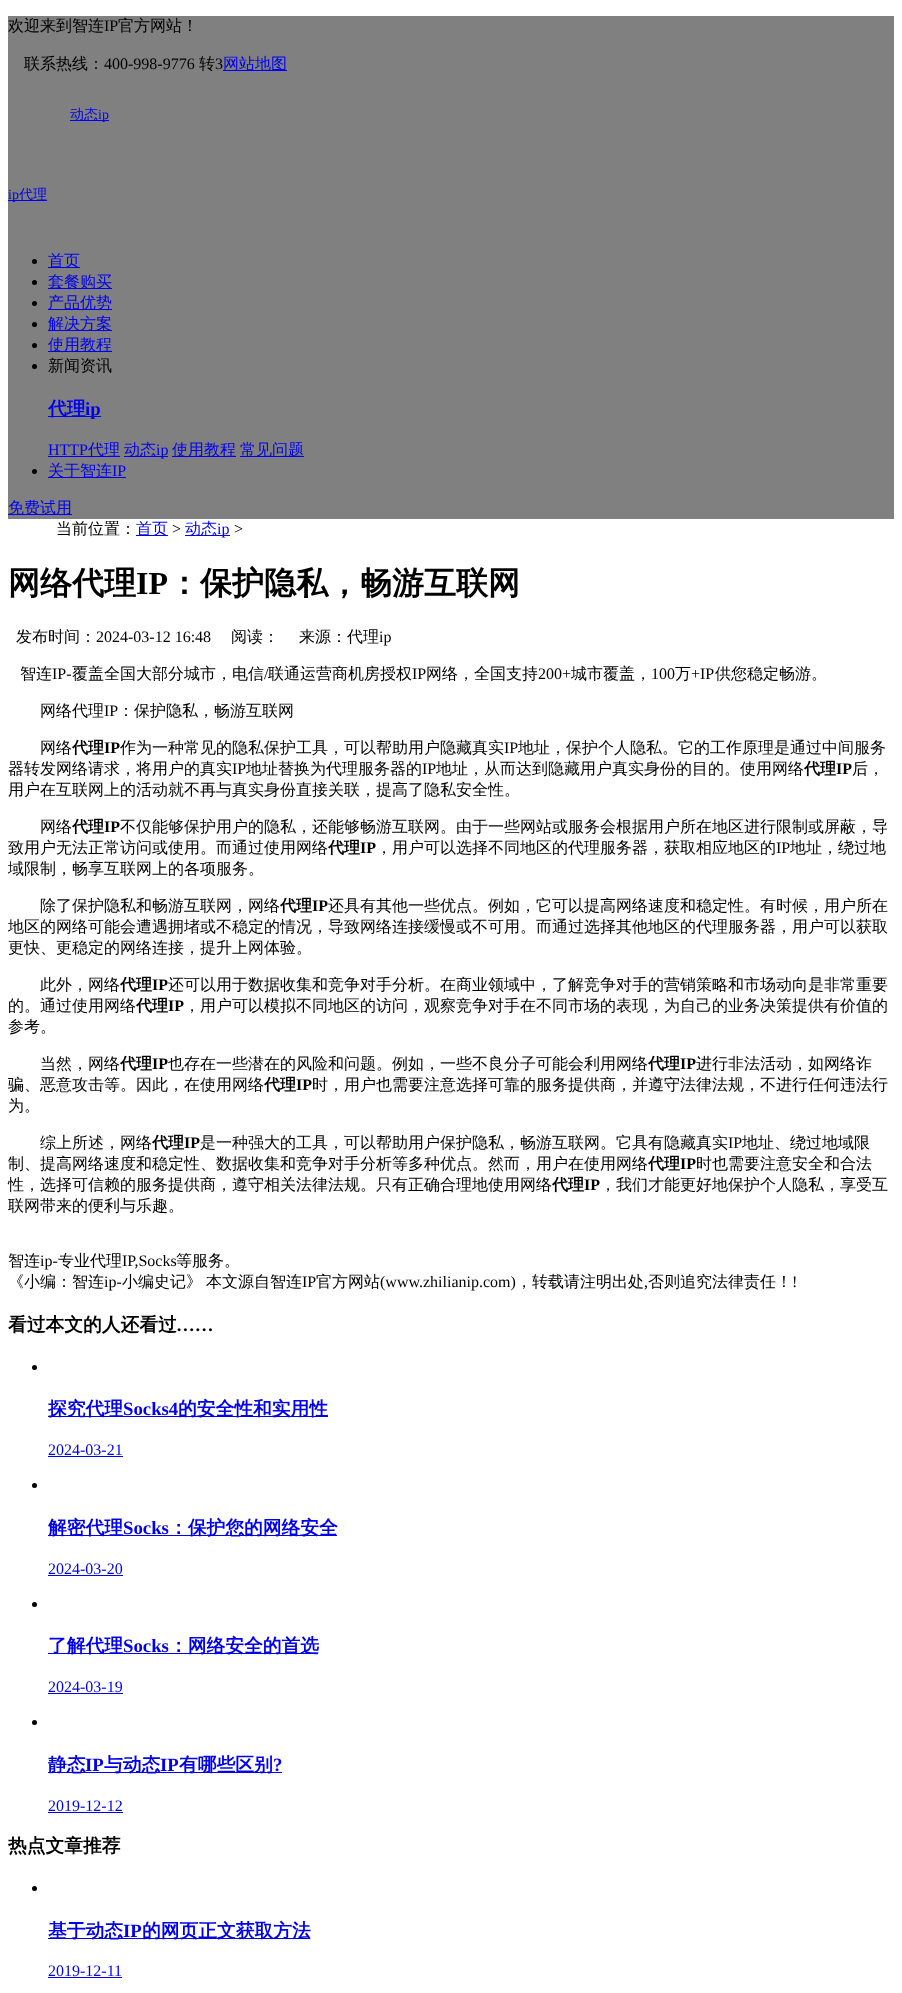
<svg xmlns="http://www.w3.org/2000/svg" width="902" height="1993" viewBox="0 0 902 1993">
  <rect width="100%" height="100%" fill="#fff"/>
  <path d="M8 16h886v503H8z" fill="#808080"/>
  <path d="M223 70h64v1H223z" fill="#00e"/>
  <path d="M70 120h39v1H70z" fill="#00e"/>
  <path d="M8 200h39v1H8z" fill="#00e"/>
  <circle cx="34.5" cy="261.5" r="2.5" fill="#000"/>
  <path d="M48 267h32v1H48z" fill="#00e"/>
  <circle cx="34.5" cy="282.5" r="2.5" fill="#000"/>
  <path d="M48 288h64v1H48z" fill="#00e"/>
  <circle cx="34.5" cy="303.5" r="2.5" fill="#000"/>
  <path d="M48 309h64v1H48z" fill="#00e"/>
  <circle cx="34.5" cy="324.5" r="2.5" fill="#000"/>
  <path d="M48 330h64v1H48z" fill="#00e"/>
  <circle cx="34.5" cy="345.5" r="2.5" fill="#000"/>
  <path d="M48 351h64v1H48z" fill="#00e"/>
  <circle cx="34.5" cy="366.5" r="2.5" fill="#000"/>
  <path d="M48 416h53v1H48z" fill="#00e"/>
  <path d="M48 456h72v1H48z" fill="#00e"/>
  <path d="M124 456h44v1H124z" fill="#00e"/>
  <path d="M172 456h64v1H172z" fill="#00e"/>
  <path d="M240 456h64v1H240z" fill="#00e"/>
  <circle cx="34.5" cy="471.5" r="2.5" fill="#000"/>
  <path d="M48 477h78v1H48z" fill="#00e"/>
  <path d="M8 514h64v1H8z" fill="#00e"/>
  <path d="M136 535h32v1H136z" fill="#00e"/>
  <path d="M185 535h45v1H185z" fill="#00e"/>
  <circle cx="34.5" cy="1367.5" r="2.5" fill="#000"/>
  <path d="M48 1416h280v1H48z" fill="#00e"/>
  <path d="M48 1456h75v1H48z" fill="#00e"/>
  <circle cx="34.5" cy="1485.5" r="2.5" fill="#000"/>
  <path d="M48 1535h289v1H48z" fill="#00e"/>
  <path d="M48 1575h75v1H48z" fill="#00e"/>
  <circle cx="34.5" cy="1604.5" r="2.5" fill="#000"/>
  <path d="M48 1653h270v1H48z" fill="#00e"/>
  <path d="M48 1693h75v1H48z" fill="#00e"/>
  <circle cx="34.5" cy="1722.5" r="2.5" fill="#000"/>
  <path d="M48 1772h234v1H48z" fill="#00e"/>
  <path d="M48 1812h75v1H48z" fill="#00e"/>
  <circle cx="34.5" cy="1888.5" r="2.5" fill="#000"/>
  <path d="M48 1938h262v1H48z" fill="#00e"/>
  <path d="M48 1977h74v1H48z" fill="#00e"/>
  <text x="8" y="31" font-family="WenQuanYi Zen Hei" font-size="16" font-weight="500" fill="#000">欢迎来到智连</text>
  <text x="104" y="31" font-family="Liberation Serif" font-size="16" fill="#000">IP</text>
  <g font-family="WenQuanYi Zen Hei" font-size="16" font-weight="500" fill="#000">
    <text x="118" y="31">官方网站！</text>
    <text x="24" y="69">联系热线：</text>
  </g>
  <text x="104" y="69" font-family="Liberation Serif" font-size="16" fill="#000">400-998-9776</text>
  <text x="199" y="69" font-family="WenQuanYi Zen Hei" font-size="16" font-weight="500" fill="#000">转</text>
  <text x="215" y="69" font-family="Liberation Serif" font-size="16" fill="#000">3</text>
  <text x="223" y="69" font-family="WenQuanYi Zen Hei" font-size="16" font-weight="500" fill="#00e">网站地图</text>
  <text x="70" y="119" font-family="WenQuanYi Zen Hei" font-size="14" font-weight="500" fill="#00e">动态</text>
  <g font-family="Liberation Serif" font-size="14" fill="#00e">
    <text x="98" y="119">ip</text>
    <text x="8" y="199">ip</text>
  </g>
  <text x="19" y="199" font-family="WenQuanYi Zen Hei" font-size="14" font-weight="500" fill="#00e">代理</text>
  <g font-family="WenQuanYi Zen Hei" font-size="16" font-weight="500" fill="#00e">
    <text x="48" y="266">首页</text>
    <text x="48" y="287">套餐购买</text>
    <text x="48" y="308">产品优势</text>
    <text x="48" y="329">解决方案</text>
    <text x="48" y="350">使用教程</text>
  </g>
  <text x="48" y="371" font-family="WenQuanYi Zen Hei" font-size="16" font-weight="500" fill="#000">新闻资讯</text>
  <text x="48" y="415" font-family="WenQuanYi Zen Hei" font-size="18.75" font-weight="bold" fill="#00e">代理</text>
  <text x="85" y="415" font-family="Liberation Serif" font-size="18.75" font-weight="bold" fill="#00e">ip</text>
  <text x="48" y="455" font-family="Liberation Serif" font-size="16" fill="#00e">HTTP</text>
  <g font-family="WenQuanYi Zen Hei" font-size="16" font-weight="500" fill="#00e">
    <text x="88" y="455">代理</text>
    <text x="124" y="455">动态</text>
  </g>
  <text x="156" y="455" font-family="Liberation Serif" font-size="16" fill="#00e">ip</text>
  <g font-family="WenQuanYi Zen Hei" font-size="16" font-weight="500" fill="#00e">
    <text x="172" y="455">使用教程</text>
    <text x="240" y="455">常见问题</text>
    <text x="48" y="476">关于智连</text>
  </g>
  <text x="112" y="476" font-family="Liberation Serif" font-size="16" fill="#00e">IP</text>
  <text x="8" y="513" font-family="WenQuanYi Zen Hei" font-size="16" font-weight="500" fill="#00e">免费试用</text>
  <text x="56" y="534" font-family="WenQuanYi Zen Hei" font-size="16" font-weight="500" fill="#000">当前位置：</text>
  <text x="136" y="534" font-family="WenQuanYi Zen Hei" font-size="16" font-weight="500" fill="#00e">首页</text>
  <text x="172" y="534" font-family="Liberation Serif" font-size="16" fill="#000">&gt;</text>
  <text x="185" y="534" font-family="WenQuanYi Zen Hei" font-size="16" font-weight="500" fill="#00e">动态</text>
  <text x="217" y="534" font-family="Liberation Serif" font-size="16" fill="#00e">ip</text>
  <text x="234" y="534" font-family="Liberation Serif" font-size="16" fill="#000">&gt;</text>
  <text x="8" y="594" font-family="WenQuanYi Zen Hei" font-size="32" font-weight="bold" fill="#000">网络代理</text>
  <text x="136" y="594" font-family="Liberation Serif" font-size="32" font-weight="bold" fill="#000">IP</text>
  <text x="168" y="594" font-family="WenQuanYi Zen Hei" font-size="32" font-weight="bold" fill="#000">：保护隐私，畅游互联网</text>
  <text x="16" y="642" font-family="WenQuanYi Zen Hei" font-size="16" font-weight="500" fill="#000">发布时间：</text>
  <text x="96" y="642" font-family="Liberation Serif" font-size="16" fill="#000">2024-03-12 16:48</text>
  <g font-family="WenQuanYi Zen Hei" font-size="16" font-weight="500" fill="#000">
    <text x="231" y="642">阅读：</text>
    <text x="299" y="642">来源：代理</text>
  </g>
  <text x="379" y="642" font-family="Liberation Serif" font-size="16" fill="#000">ip</text>
  <text x="20" y="679" font-family="WenQuanYi Zen Hei" font-size="16" font-weight="500" fill="#000">智连</text>
  <text x="52" y="679" font-family="Liberation Serif" font-size="16" fill="#000">IP-</text>
  <text x="72" y="679" font-family="WenQuanYi Zen Hei" font-size="16" font-weight="500" fill="#000">覆盖全国大部分城市，电信</text>
  <text x="264" y="679" font-family="Liberation Serif" font-size="16" fill="#000">/</text>
  <text x="268" y="679" font-family="WenQuanYi Zen Hei" font-size="16" font-weight="500" fill="#000">联通运营商机房授权</text>
  <text x="412" y="679" font-family="Liberation Serif" font-size="16" fill="#000">IP</text>
  <text x="426" y="679" font-family="WenQuanYi Zen Hei" font-size="16" font-weight="500" fill="#000">网络，全国支持</text>
  <text x="538" y="679" font-family="Liberation Serif" font-size="16" fill="#000">200+</text>
  <text x="571" y="679" font-family="WenQuanYi Zen Hei" font-size="16" font-weight="500" fill="#000">城市覆盖，</text>
  <text x="651" y="679" font-family="Liberation Serif" font-size="16" fill="#000">100</text>
  <text x="675" y="679" font-family="WenQuanYi Zen Hei" font-size="16" font-weight="500" fill="#000">万</text>
  <text x="691" y="679" font-family="Liberation Serif" font-size="16" fill="#000">+IP</text>
  <g font-family="WenQuanYi Zen Hei" font-size="16" font-weight="500" fill="#000">
    <text x="715" y="679">供您稳定畅游。</text>
    <text x="40" y="716">网络代理</text>
  </g>
  <text x="104" y="716" font-family="Liberation Serif" font-size="16" fill="#000">IP</text>
  <g font-family="WenQuanYi Zen Hei" font-size="16" font-weight="500" fill="#000">
    <text x="118" y="716">：保护隐私，畅游互联网</text>
    <text x="40" y="753">网络</text>
  </g>
  <text x="72" y="753" font-family="WenQuanYi Zen Hei" font-size="16" font-weight="bold" fill="#000">代理</text>
  <text x="104" y="753" font-family="Liberation Serif" font-size="16" font-weight="bold" fill="#000">IP</text>
  <text x="120" y="753" font-family="WenQuanYi Zen Hei" font-size="16" font-weight="500" fill="#000">作为一种常见的隐私保护工具，可以帮助用户隐藏真实</text>
  <text x="504" y="753" font-family="Liberation Serif" font-size="16" fill="#000">IP</text>
  <g font-family="WenQuanYi Zen Hei" font-size="16" font-weight="500" fill="#000">
    <text x="518" y="753">地址，保护个人隐私。它的工作原理是通过中间服务</text>
    <text x="8" y="774">器转发网络请求，将用户的真实</text>
  </g>
  <text x="232" y="774" font-family="Liberation Serif" font-size="16" fill="#000">IP</text>
  <text x="246" y="774" font-family="WenQuanYi Zen Hei" font-size="16" font-weight="500" fill="#000">地址替换为代理服务器的</text>
  <text x="422" y="774" font-family="Liberation Serif" font-size="16" fill="#000">IP</text>
  <text x="436" y="774" font-family="WenQuanYi Zen Hei" font-size="16" font-weight="500" fill="#000">地址，从而达到隐藏用户真实身份的目的。使用网络</text>
  <text x="804" y="774" font-family="WenQuanYi Zen Hei" font-size="16" font-weight="bold" fill="#000">代理</text>
  <text x="836" y="774" font-family="Liberation Serif" font-size="16" font-weight="bold" fill="#000">IP</text>
  <g font-family="WenQuanYi Zen Hei" font-size="16" font-weight="500" fill="#000">
    <text x="852" y="774">后，</text>
    <text x="8" y="795">用户在互联网上的活动就不再与真实身份直接关联，提高了隐私安全性。</text>
    <text x="40" y="832">网络</text>
  </g>
  <text x="72" y="832" font-family="WenQuanYi Zen Hei" font-size="16" font-weight="bold" fill="#000">代理</text>
  <text x="104" y="832" font-family="Liberation Serif" font-size="16" font-weight="bold" fill="#000">IP</text>
  <g font-family="WenQuanYi Zen Hei" font-size="16" font-weight="500" fill="#000">
    <text x="120" y="832">不仅能够保护用户的隐私，还能够畅游互联网。由于一些网站或服务会根据用户所在地区进行限制或屏蔽，导</text>
    <text x="8" y="853">致用户无法正常访问或使用。而通过使用网络</text>
  </g>
  <text x="328" y="853" font-family="WenQuanYi Zen Hei" font-size="16" font-weight="bold" fill="#000">代理</text>
  <text x="360" y="853" font-family="Liberation Serif" font-size="16" font-weight="bold" fill="#000">IP</text>
  <text x="376" y="853" font-family="WenQuanYi Zen Hei" font-size="16" font-weight="500" fill="#000">，用户可以选择不同地区的代理服务器，获取相应地区的</text>
  <text x="776" y="853" font-family="Liberation Serif" font-size="16" fill="#000">IP</text>
  <g font-family="WenQuanYi Zen Hei" font-size="16" font-weight="500" fill="#000">
    <text x="790" y="853">地址，绕过地</text>
    <text x="8" y="874">域限制，畅享互联网上的各项服务。</text>
    <text x="40" y="911">除了保护隐私和畅游互联网，网络</text>
  </g>
  <text x="280" y="911" font-family="WenQuanYi Zen Hei" font-size="16" font-weight="bold" fill="#000">代理</text>
  <text x="312" y="911" font-family="Liberation Serif" font-size="16" font-weight="bold" fill="#000">IP</text>
  <g font-family="WenQuanYi Zen Hei" font-size="16" font-weight="500" fill="#000">
    <text x="328" y="911">还具有其他一些优点。例如，它可以提高网络速度和稳定性。有时候，用户所在</text>
    <text x="8" y="932">地区的网络可能会遭遇拥堵或不稳定的情况，导致网络连接缓慢或不可用。而通过选择其他地区的代理服务器，用户可以获取</text>
    <text x="8" y="953">更快、更稳定的网络连接，提升上网体验。</text>
    <text x="40" y="990">此外，网络</text>
  </g>
  <text x="120" y="990" font-family="WenQuanYi Zen Hei" font-size="16" font-weight="bold" fill="#000">代理</text>
  <text x="152" y="990" font-family="Liberation Serif" font-size="16" font-weight="bold" fill="#000">IP</text>
  <g font-family="WenQuanYi Zen Hei" font-size="16" font-weight="500" fill="#000">
    <text x="168" y="990">还可以用于数据收集和竞争对手分析。在商业领域中，了解竞争对手的营销策略和市场动向是非常重要</text>
    <text x="8" y="1011">的。通过使用网络</text>
  </g>
  <text x="136" y="1011" font-family="WenQuanYi Zen Hei" font-size="16" font-weight="bold" fill="#000">代理</text>
  <text x="168" y="1011" font-family="Liberation Serif" font-size="16" font-weight="bold" fill="#000">IP</text>
  <g font-family="WenQuanYi Zen Hei" font-size="16" font-weight="500" fill="#000">
    <text x="184" y="1011">，用户可以模拟不同地区的访问，观察竞争对手在不同市场的表现，为自己的业务决策提供有价值的</text>
    <text x="8" y="1032">参考。</text>
    <text x="40" y="1069">当然，网络</text>
  </g>
  <text x="120" y="1069" font-family="WenQuanYi Zen Hei" font-size="16" font-weight="bold" fill="#000">代理</text>
  <text x="152" y="1069" font-family="Liberation Serif" font-size="16" font-weight="bold" fill="#000">IP</text>
  <text x="168" y="1069" font-family="WenQuanYi Zen Hei" font-size="16" font-weight="500" fill="#000">也存在一些潜在的风险和问题。例如，一些不良分子可能会利用网络</text>
  <text x="648" y="1069" font-family="WenQuanYi Zen Hei" font-size="16" font-weight="bold" fill="#000">代理</text>
  <text x="680" y="1069" font-family="Liberation Serif" font-size="16" font-weight="bold" fill="#000">IP</text>
  <g font-family="WenQuanYi Zen Hei" font-size="16" font-weight="500" fill="#000">
    <text x="696" y="1069">进行非法活动，如网络诈</text>
    <text x="8" y="1090">骗、恶意攻击等。因此，在使用网络</text>
  </g>
  <text x="264" y="1090" font-family="WenQuanYi Zen Hei" font-size="16" font-weight="bold" fill="#000">代理</text>
  <text x="296" y="1090" font-family="Liberation Serif" font-size="16" font-weight="bold" fill="#000">IP</text>
  <g font-family="WenQuanYi Zen Hei" font-size="16" font-weight="500" fill="#000">
    <text x="312" y="1090">时，用户也需要注意选择可靠的服务提供商，并遵守法律法规，不进行任何违法行</text>
    <text x="8" y="1111">为。</text>
    <text x="40" y="1148">综上所述，网络</text>
  </g>
  <text x="152" y="1148" font-family="WenQuanYi Zen Hei" font-size="16" font-weight="bold" fill="#000">代理</text>
  <text x="184" y="1148" font-family="Liberation Serif" font-size="16" font-weight="bold" fill="#000">IP</text>
  <text x="200" y="1148" font-family="WenQuanYi Zen Hei" font-size="16" font-weight="500" fill="#000">是一种强大的工具，可以帮助用户保护隐私，畅游互联网。它具有隐藏真实</text>
  <text x="728" y="1148" font-family="Liberation Serif" font-size="16" fill="#000">IP</text>
  <g font-family="WenQuanYi Zen Hei" font-size="16" font-weight="500" fill="#000">
    <text x="742" y="1148">地址、绕过地域限</text>
    <text x="8" y="1169">制、提高网络速度和稳定性、数据收集和竞争对手分析等多种优点。然而，用户在使用网络</text>
  </g>
  <text x="648" y="1169" font-family="WenQuanYi Zen Hei" font-size="16" font-weight="bold" fill="#000">代理</text>
  <text x="680" y="1169" font-family="Liberation Serif" font-size="16" font-weight="bold" fill="#000">IP</text>
  <g font-family="WenQuanYi Zen Hei" font-size="16" font-weight="500" fill="#000">
    <text x="696" y="1169">时也需要注意安全和合法</text>
    <text x="8" y="1190">性，选择可信赖的服务提供商，遵守相关法律法规。只有正确合理地使用网络</text>
  </g>
  <text x="552" y="1190" font-family="WenQuanYi Zen Hei" font-size="16" font-weight="bold" fill="#000">代理</text>
  <text x="584" y="1190" font-family="Liberation Serif" font-size="16" font-weight="bold" fill="#000">IP</text>
  <g font-family="WenQuanYi Zen Hei" font-size="16" font-weight="500" fill="#000">
    <text x="600" y="1190">，我们才能更好地保护个人隐私，享受互</text>
    <text x="8" y="1211">联网带来的便利与乐趣。</text>
    <text x="8" y="1266">智连</text>
  </g>
  <text x="40" y="1266" font-family="Liberation Serif" font-size="16" fill="#000">ip-</text>
  <text x="58" y="1266" font-family="WenQuanYi Zen Hei" font-size="16" font-weight="500" fill="#000">专业代理</text>
  <text x="122" y="1266" font-family="Liberation Serif" font-size="16" fill="#000">IP,Socks</text>
  <g font-family="WenQuanYi Zen Hei" font-size="16" font-weight="500" fill="#000">
    <text x="176" y="1266">等服务。</text>
    <text x="8" y="1287">《小编：智连</text>
  </g>
  <text x="104" y="1287" font-family="Liberation Serif" font-size="16" fill="#000">ip-</text>
  <g font-family="WenQuanYi Zen Hei" font-size="16" font-weight="500" fill="#000">
    <text x="122" y="1287">小编史记》</text>
    <text x="206" y="1287">本文源自智连</text>
  </g>
  <text x="302" y="1287" font-family="Liberation Serif" font-size="16" fill="#000">IP</text>
  <text x="316" y="1287" font-family="WenQuanYi Zen Hei" font-size="16" font-weight="500" fill="#000">官方网站</text>
  <text x="380" y="1287" font-family="Liberation Serif" font-size="16" fill="#000">(www.zhilianip.com)</text>
  <text x="516" y="1287" font-family="WenQuanYi Zen Hei" font-size="16" font-weight="500" fill="#000">，转载请注明出处</text>
  <text x="644" y="1287" font-family="Liberation Serif" font-size="16" fill="#000">,</text>
  <text x="648" y="1287" font-family="WenQuanYi Zen Hei" font-size="16" font-weight="500" fill="#000">否则追究法律责任！</text>
  <text x="792" y="1287" font-family="Liberation Serif" font-size="16" fill="#000">!</text>
  <text x="8" y="1331" font-family="WenQuanYi Zen Hei" font-size="18.75" font-weight="bold" fill="#000">看过本文的人还看过</text>
  <text x="176" y="1331" font-family="Liberation Serif" font-size="18.75" font-weight="bold" fill="#000">……</text>
  <text x="48" y="1415" font-family="WenQuanYi Zen Hei" font-size="18.75" font-weight="bold" fill="#00e">探究代理</text>
  <text x="123" y="1415" font-family="Liberation Serif" font-size="18.75" font-weight="bold" fill="#00e">Socks4</text>
  <text x="178" y="1415" font-family="WenQuanYi Zen Hei" font-size="18.75" font-weight="bold" fill="#00e">的安全性和实用性</text>
  <text x="48" y="1455" font-family="Liberation Serif" font-size="16" fill="#00e">2024-03-21</text>
  <text x="48" y="1534" font-family="WenQuanYi Zen Hei" font-size="18.75" font-weight="bold" fill="#00e">解密代理</text>
  <text x="123" y="1534" font-family="Liberation Serif" font-size="18.75" font-weight="bold" fill="#00e">Socks</text>
  <text x="169" y="1534" font-family="WenQuanYi Zen Hei" font-size="18.75" font-weight="bold" fill="#00e">：保护您的网络安全</text>
  <text x="48" y="1574" font-family="Liberation Serif" font-size="16" fill="#00e">2024-03-20</text>
  <text x="48" y="1652" font-family="WenQuanYi Zen Hei" font-size="18.75" font-weight="bold" fill="#00e">了解代理</text>
  <text x="123" y="1652" font-family="Liberation Serif" font-size="18.75" font-weight="bold" fill="#00e">Socks</text>
  <text x="169" y="1652" font-family="WenQuanYi Zen Hei" font-size="18.75" font-weight="bold" fill="#00e">：网络安全的首选</text>
  <text x="48" y="1692" font-family="Liberation Serif" font-size="16" fill="#00e">2024-03-19</text>
  <text x="48" y="1771" font-family="WenQuanYi Zen Hei" font-size="18.75" font-weight="bold" fill="#00e">静态</text>
  <text x="85" y="1771" font-family="Liberation Serif" font-size="18.75" font-weight="bold" fill="#00e">IP</text>
  <text x="104" y="1771" font-family="WenQuanYi Zen Hei" font-size="18.75" font-weight="bold" fill="#00e">与动态</text>
  <text x="160" y="1771" font-family="Liberation Serif" font-size="18.75" font-weight="bold" fill="#00e">IP</text>
  <text x="179" y="1771" font-family="WenQuanYi Zen Hei" font-size="18.75" font-weight="bold" fill="#00e">有哪些区别</text>
  <text x="273" y="1771" font-family="Liberation Serif" font-size="18.75" font-weight="bold" fill="#00e">?</text>
  <text x="48" y="1811" font-family="Liberation Serif" font-size="16" fill="#00e">2019-12-12</text>
  <text x="8" y="1852" font-family="WenQuanYi Zen Hei" font-size="18.75" font-weight="bold" fill="#000">热点文章推荐</text>
  <text x="48" y="1937" font-family="WenQuanYi Zen Hei" font-size="18.75" font-weight="bold" fill="#00e">基于动态</text>
  <text x="123" y="1937" font-family="Liberation Serif" font-size="18.75" font-weight="bold" fill="#00e">IP</text>
  <text x="142" y="1937" font-family="WenQuanYi Zen Hei" font-size="18.75" font-weight="bold" fill="#00e">的网页正文获取方法</text>
  <text x="48" y="1976" font-family="Liberation Serif" font-size="16" fill="#00e">2019-12-11</text>
</svg>
